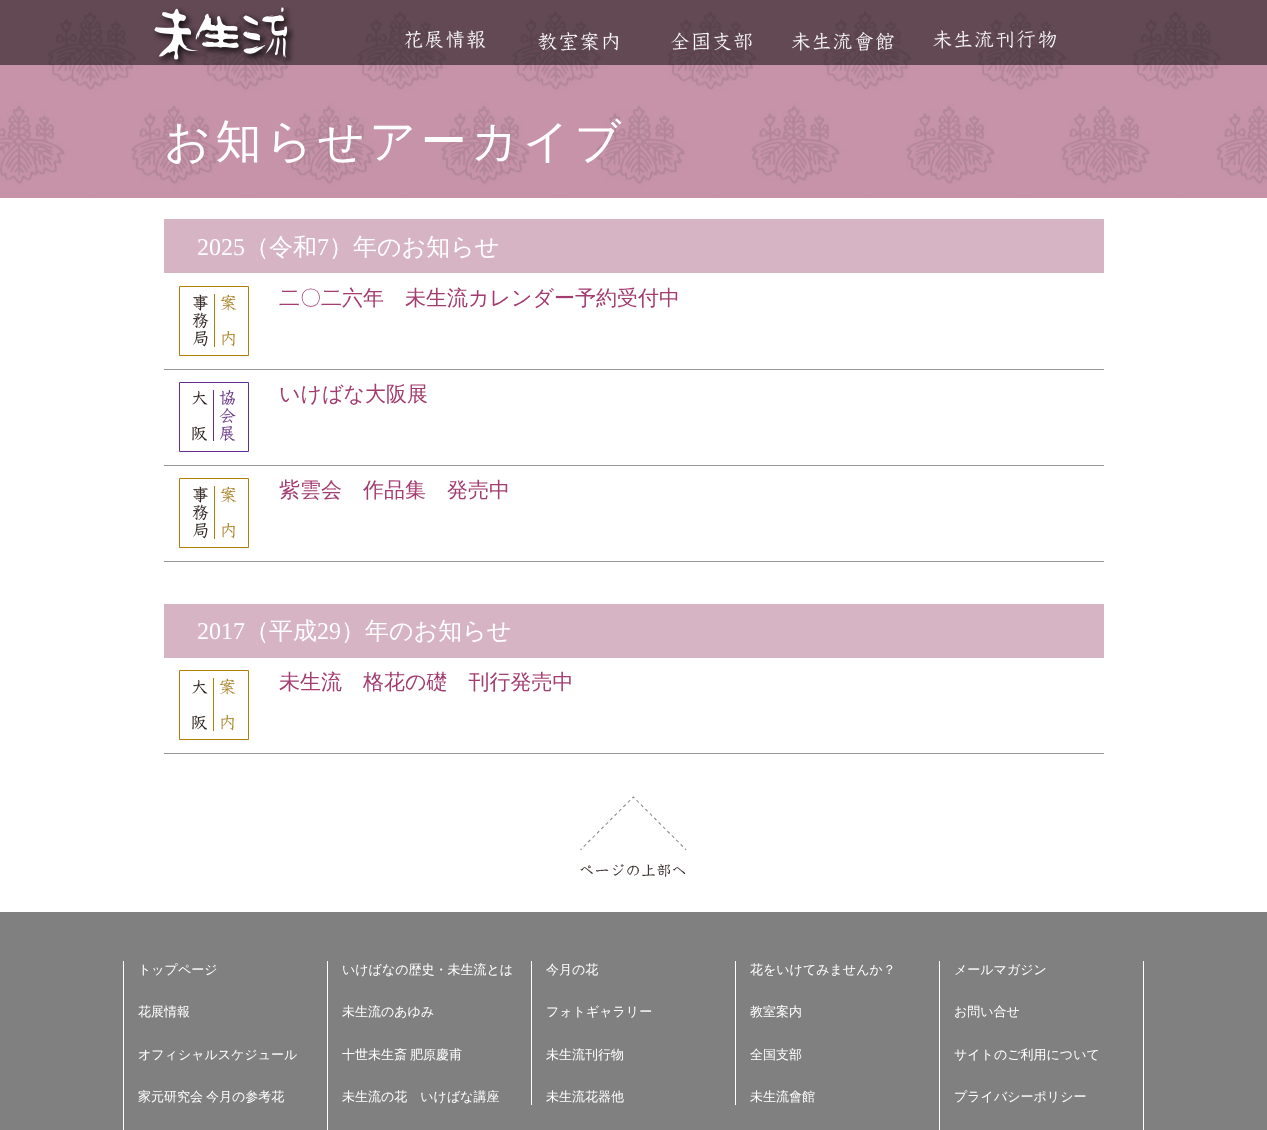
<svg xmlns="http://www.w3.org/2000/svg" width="1267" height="1130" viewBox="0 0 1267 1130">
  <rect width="100%" height="100%" fill="#fff"/>
  <image x="0" y="0" width="1267" height="198" href="img/7.png"/>
  <path d="M0 0h1267v65H0z" fill="#00000080"/>
  <image x="153" y="7" width="142" height="58" href="img/1.png"/>
  <image x="405" y="30" width="81" height="19" href="img/2.png"/>
  <image x="538" y="32" width="81" height="19" href="img/3.png"/>
  <image x="671" y="32" width="81" height="19" href="img/4.png"/>
  <image x="792" y="32" width="102" height="19" href="img/5.png"/>
  <image x="933" y="30" width="124" height="19" href="img/6.png"/>
  <path d="M164 219h940v54H164z" fill="#d6b4c4"/>
  <path d="M164 369h940v1H164z" fill="#999"/>
  <path d="M179.5 286.5h69v69H179.5z" fill="none" stroke="#b18000"/>
  <image x="192" y="294" width="17" height="53" href="img/8.png"/>
  <path d="M214 294h1v53H214z" fill="#b18000"/>
  <image x="220" y="294" width="16" height="53" href="img/9.png"/>
  <path d="M164 465h940v1H164z" fill="#999"/>
  <path d="M179.5 382.5h69v69H179.5z" fill="none" stroke="#662d91"/>
  <image x="192" y="391" width="16" height="50" href="img/10.png"/>
  <path d="M213 390h1v51H213z" fill="#662d91"/>
  <image x="219" y="390" width="17" height="51" href="img/11.png"/>
  <path d="M164 561h940v1H164z" fill="#999"/>
  <path d="M179.5 478.5h69v69H179.5z" fill="none" stroke="#b18000"/>
  <image x="192" y="486" width="17" height="53" href="img/8.png"/>
  <path d="M214 486h1v53H214z" fill="#b18000"/>
  <image x="220" y="486" width="16" height="53" href="img/9.png"/>
  <path d="M164 604h940v54H164z" fill="#d6b4c4"/>
  <path d="M164 753h940v1H164z" fill="#999"/>
  <path d="M179.5 670.5h69v69H179.5z" fill="none" stroke="#b18000"/>
  <image x="192" y="680" width="16" height="50" href="img/10.png"/>
  <path d="M213 678h1v53H213z" fill="#b18000"/>
  <image x="219" y="678" width="16" height="53" href="img/9.png"/>
  <image x="580" y="796" width="107" height="81" href="img/12.png"/>
  <path d="M0 912h1267v218H0z" fill="#808080"/>
  <path d="M1143 961h1v169H1143z" fill="#fff"/>
  <path d="M123 961h1v169H123z" fill="#fff"/>
  <path d="M327 961h1v169H327z" fill="#fff"/>
  <path d="M531 961h1v144H531z" fill="#fff"/>
  <path d="M735 961h1v144H735z" fill="#fff"/>
  <path d="M939 961h1v169H939z" fill="#fff"/>
  <text x="164" y="157" font-family="WenQuanYi Zen Hei" font-size="46" font-weight="500" letter-spacing="4.5" fill="#fff">お知らせアーカイブ</text>
  <text x="197" y="255" font-family="Liberation Serif" font-size="24" fill="#fff">2025</text>
  <text x="245" y="255" font-family="WenQuanYi Zen Hei" font-size="24" font-weight="500" fill="#fff">（令和</text>
  <text x="317" y="255" font-family="Liberation Serif" font-size="24" fill="#fff">7</text>
  <text x="329" y="255" font-family="WenQuanYi Zen Hei" font-size="24" font-weight="500" fill="#fff">）年のお知らせ</text>
  <g font-family="WenQuanYi Zen Hei" font-size="21" font-weight="500" fill="#a33c70">
    <text x="279" y="305">二〇二六年　未生流カレンダー予約受付中</text>
    <text x="279" y="401">いけばな大阪展</text>
    <text x="279" y="497">紫雲会　作品集　発売中</text>
  </g>
  <text x="197" y="639" font-family="Liberation Serif" font-size="24" fill="#fff">2017</text>
  <text x="245" y="639" font-family="WenQuanYi Zen Hei" font-size="24" font-weight="500" fill="#fff">（平成</text>
  <text x="317" y="639" font-family="Liberation Serif" font-size="24" fill="#fff">29</text>
  <text x="341" y="639" font-family="WenQuanYi Zen Hei" font-size="24" font-weight="500" fill="#fff">）年のお知らせ</text>
  <text x="279" y="689" font-family="WenQuanYi Zen Hei" font-size="21" font-weight="500" fill="#a33c70">未生流　格花の礎　刊行発売中</text>
  <g font-family="WenQuanYi Zen Hei" font-size="13" font-weight="500" fill="#fff">
    <text x="138" y="974">トップページ</text>
    <text x="138" y="1016">花展情報</text>
    <text x="138" y="1059">オフィシャルスケジュール</text>
    <text x="138" y="1101" word-spacing="-1">家元研究会 今月の参考花</text>
    <text x="342" y="974">いけばなの歴史・未生流とは</text>
    <text x="342" y="1016">未生流のあゆみ</text>
    <text x="342" y="1059" word-spacing="-1">十世未生斎 肥原慶甫</text>
    <text x="342" y="1101">未生流の花　いけばな講座</text>
    <text x="546" y="974">今月の花</text>
    <text x="546" y="1016">フォトギャラリー</text>
    <text x="546" y="1059">未生流刊行物</text>
    <text x="546" y="1101">未生流花器他</text>
    <text x="750" y="974">花をいけてみませんか？</text>
    <text x="750" y="1016">教室案内</text>
    <text x="750" y="1059">全国支部</text>
    <text x="750" y="1101">未生流會館</text>
    <text x="954" y="974">メールマガジン</text>
    <text x="954" y="1016">お問い合せ</text>
    <text x="954" y="1059">サイトのご利用について</text>
    <text x="954" y="1101">プライバシーポリシー</text>
  </g>
</svg>
